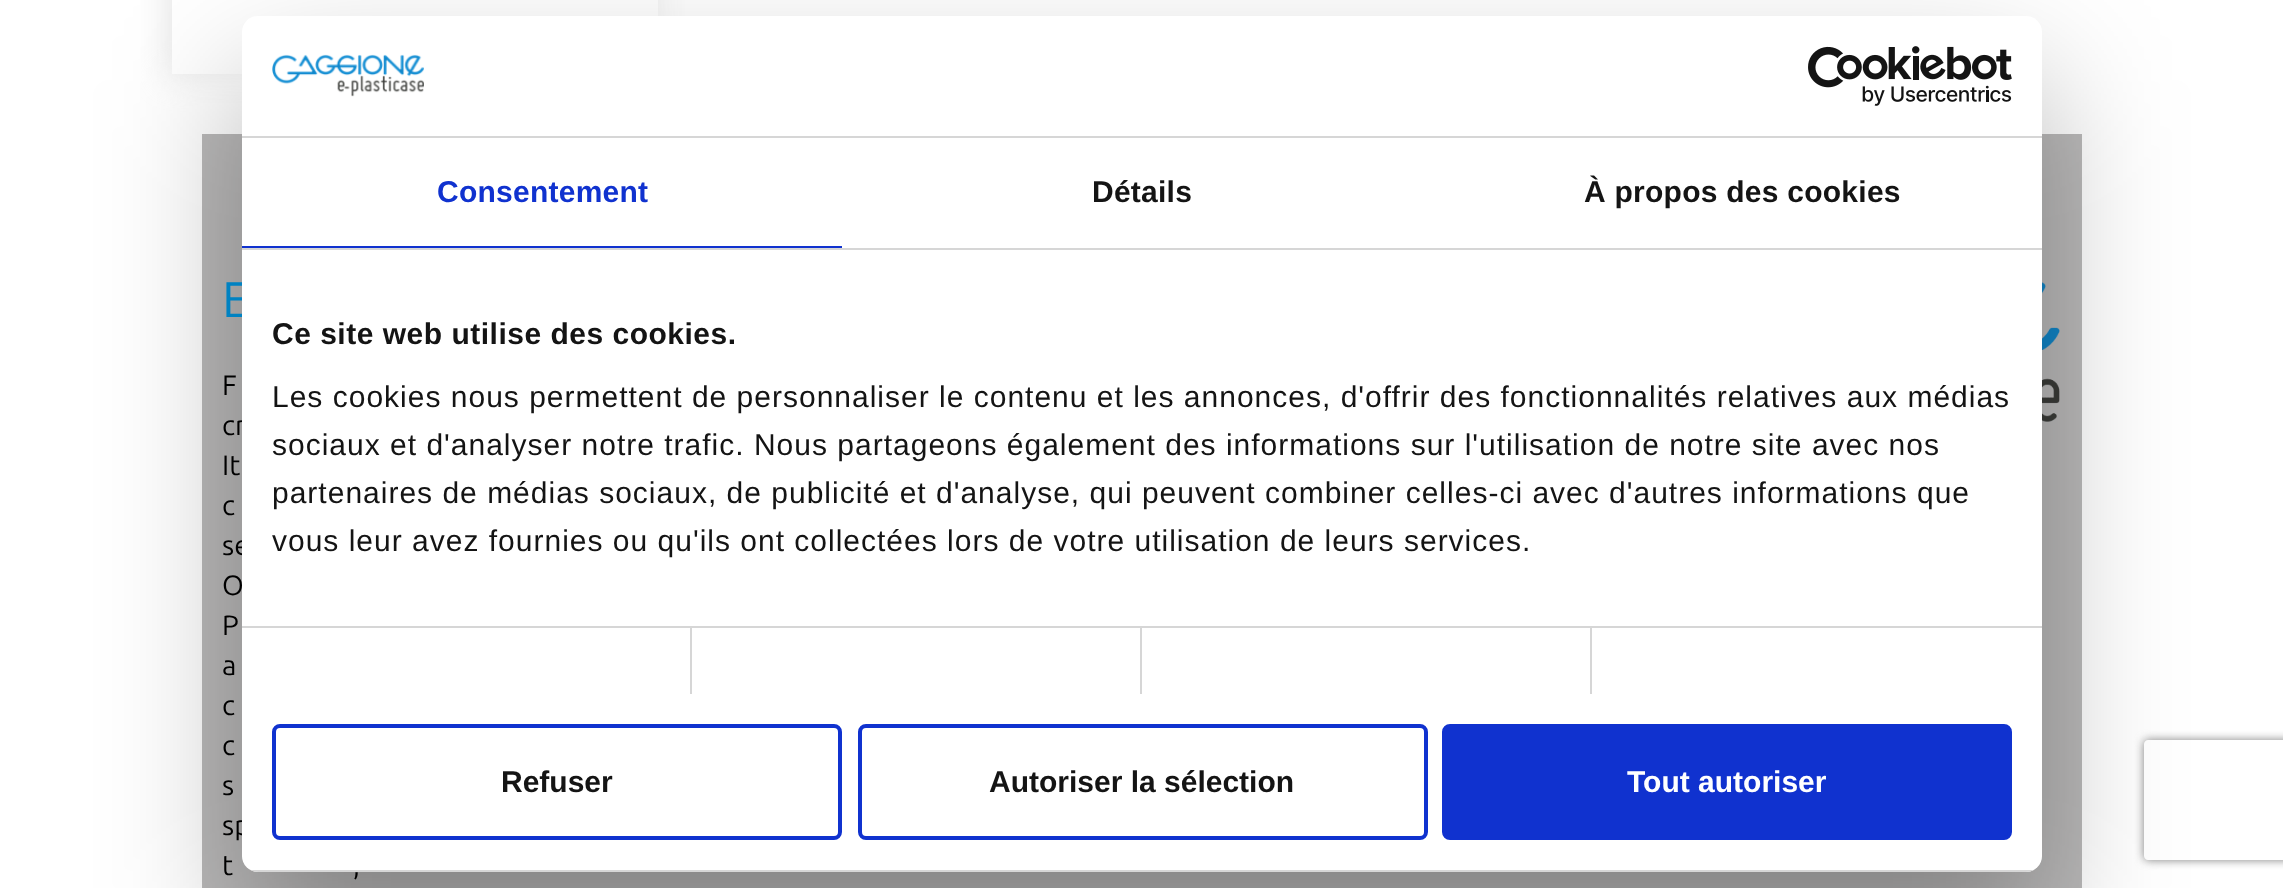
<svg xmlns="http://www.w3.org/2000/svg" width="2283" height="888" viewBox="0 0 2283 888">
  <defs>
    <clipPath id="clip1"><path d="M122 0H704V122H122ZM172-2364H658V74H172Z" clip-rule="evenodd"/></clipPath>
    <clipPath id="clip2"><path d="M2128 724H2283V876H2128ZM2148 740H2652C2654 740 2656 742 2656 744V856C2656 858 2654 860 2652 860H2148C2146 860 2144 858 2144 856V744C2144 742 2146 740 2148 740Z" clip-rule="evenodd"/></clipPath>
    <clipPath id="clip3"><rect x="242" y="16" width="1800" height="856" rx="16"/></clipPath>
  </defs>
  <rect width="100%" height="100%" fill="#fff"/>
  <path d="M202 134h1880v754H202z" fill="#bbbaba"/>
  <image x="2042" y="282" width="18" height="140" href="img/3.png"/>
  <rect x="242" y="80" width="1800" height="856" rx="16" fill="#0000004d" filter="blur(68px)"/>
  <g clip-path="url(#clip1)">
    <path d="M168 -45h490v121H168z" fill="#e4e4e4" filter="blur(15px)"/>
  </g>
  <g clip-path="url(#clip2)">
    <rect x="2144" y="740" width="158" height="120" rx="4" fill="#808080" filter="blur(5px)"/>
  </g>
  <text x="222" y="317" font-family="Ubuntu" font-size="50" fill="#0082c2">E</text>
  <g font-family="Ubuntu" font-size="28" fill="#000">
    <text x="222" y="395">F</text>
    <text x="222" y="435">cr</text>
    <text x="222" y="475">It</text>
    <text x="222" y="515">c</text>
    <text x="222" y="555">se</text>
    <text x="222" y="595">O</text>
    <text x="222" y="635">P</text>
    <text x="222" y="675">a</text>
    <text x="222" y="715">c</text>
    <text x="222" y="755">c</text>
    <text x="222" y="795">s</text>
    <text x="222" y="835">sp</text>
  </g>
  <rect x="242" y="16" width="1800" height="856" rx="16" fill="#fff"/>
  <rect x="1444" y="726" width="566" height="112" rx="6" fill="#1032cf" stroke="#1032cf" stroke-width="4"/>
  <text x="1627" y="792" font-family="Liberation Sans" font-size="30" font-weight="bold" fill="#fff">Tout autoriser</text>
  <rect x="860" y="726" width="566" height="112" rx="6" fill="none" stroke="#1032cf" stroke-width="4"/>
  <text x="989" y="792" font-family="Liberation Sans" font-size="30" font-weight="bold" fill="#141414">Autoriser la sélection</text>
  <rect x="274" y="726" width="566" height="112" rx="6" fill="none" stroke="#1032cf" stroke-width="4"/>
  <text x="501" y="792" font-family="Liberation Sans" font-size="30" font-weight="bold" fill="#141414">Refuser</text>
  <g clip-path="url(#clip3)">
    <path d="M242 870h1800v2H242z" fill="#d6d6d6"/>
  </g>
  <g font-family="Liberation Sans" font-size="30" letter-spacing="1" fill="#141414">
    <text x="272" y="551">vous leur avez fournies ou qu'ils ont collectées lors de votre utilisation de leurs services.</text>
    <text x="272" y="503">partenaires de médias sociaux, de publicité et d'analyse, qui peuvent combiner celles-ci avec d'autres informations que</text>
    <text x="272" y="455">sociaux et d'analyser notre trafic. Nous partageons également des informations sur l'utilisation de notre site avec nos</text>
    <text x="272" y="407">Les cookies nous permettent de personnaliser le contenu et les annonces, d'offrir des fonctionnalités relatives aux médias</text>
  </g>
  <text x="272" y="344" font-family="Liberation Sans" font-size="30" font-weight="bold" letter-spacing="0.5" fill="#141414">Ce site web utilise des cookies.</text>
  <path d="M242 626h1800v2H242z" fill="#d6d6d6"/>
  <g font-family="Liberation Sans" font-size="30" font-weight="bold" letter-spacing="0.25" fill="#141414">
    <text x="1584" y="202">À propos des cookies</text>
    <text x="1092" y="202">Détails</text>
  </g>
  <text x="437" y="202" font-family="Liberation Sans" font-size="30" font-weight="bold" letter-spacing="0.25" fill="#1032cf">Consentement</text>
  <path d="M242 246h600v2H242z" fill="#1032cf"/>
  <path d="M242 248h1800v2H242z" fill="#d6d6d6"/>
  <path d="M1590 628h2v66H1590z" fill="#d6d6d6"/>
  <path d="M1140 628h2v66H1140z" fill="#d6d6d6"/>
  <path d="M690 628h2v66H690z" fill="#d6d6d6"/>
  <image x="1808" y="46" width="204" height="60" href="img/2.png"/>
  <image x="272" y="54" width="152" height="43" href="img/1.png"/>
  <path d="M242 136h1800v2H242z" fill="#d6d6d6"/>
  <g font-family="Ubuntu" font-size="28" fill="#000">
    <text x="222" y="875">t</text>
    <text x="353" y="875">,</text>
  </g>
</svg>
